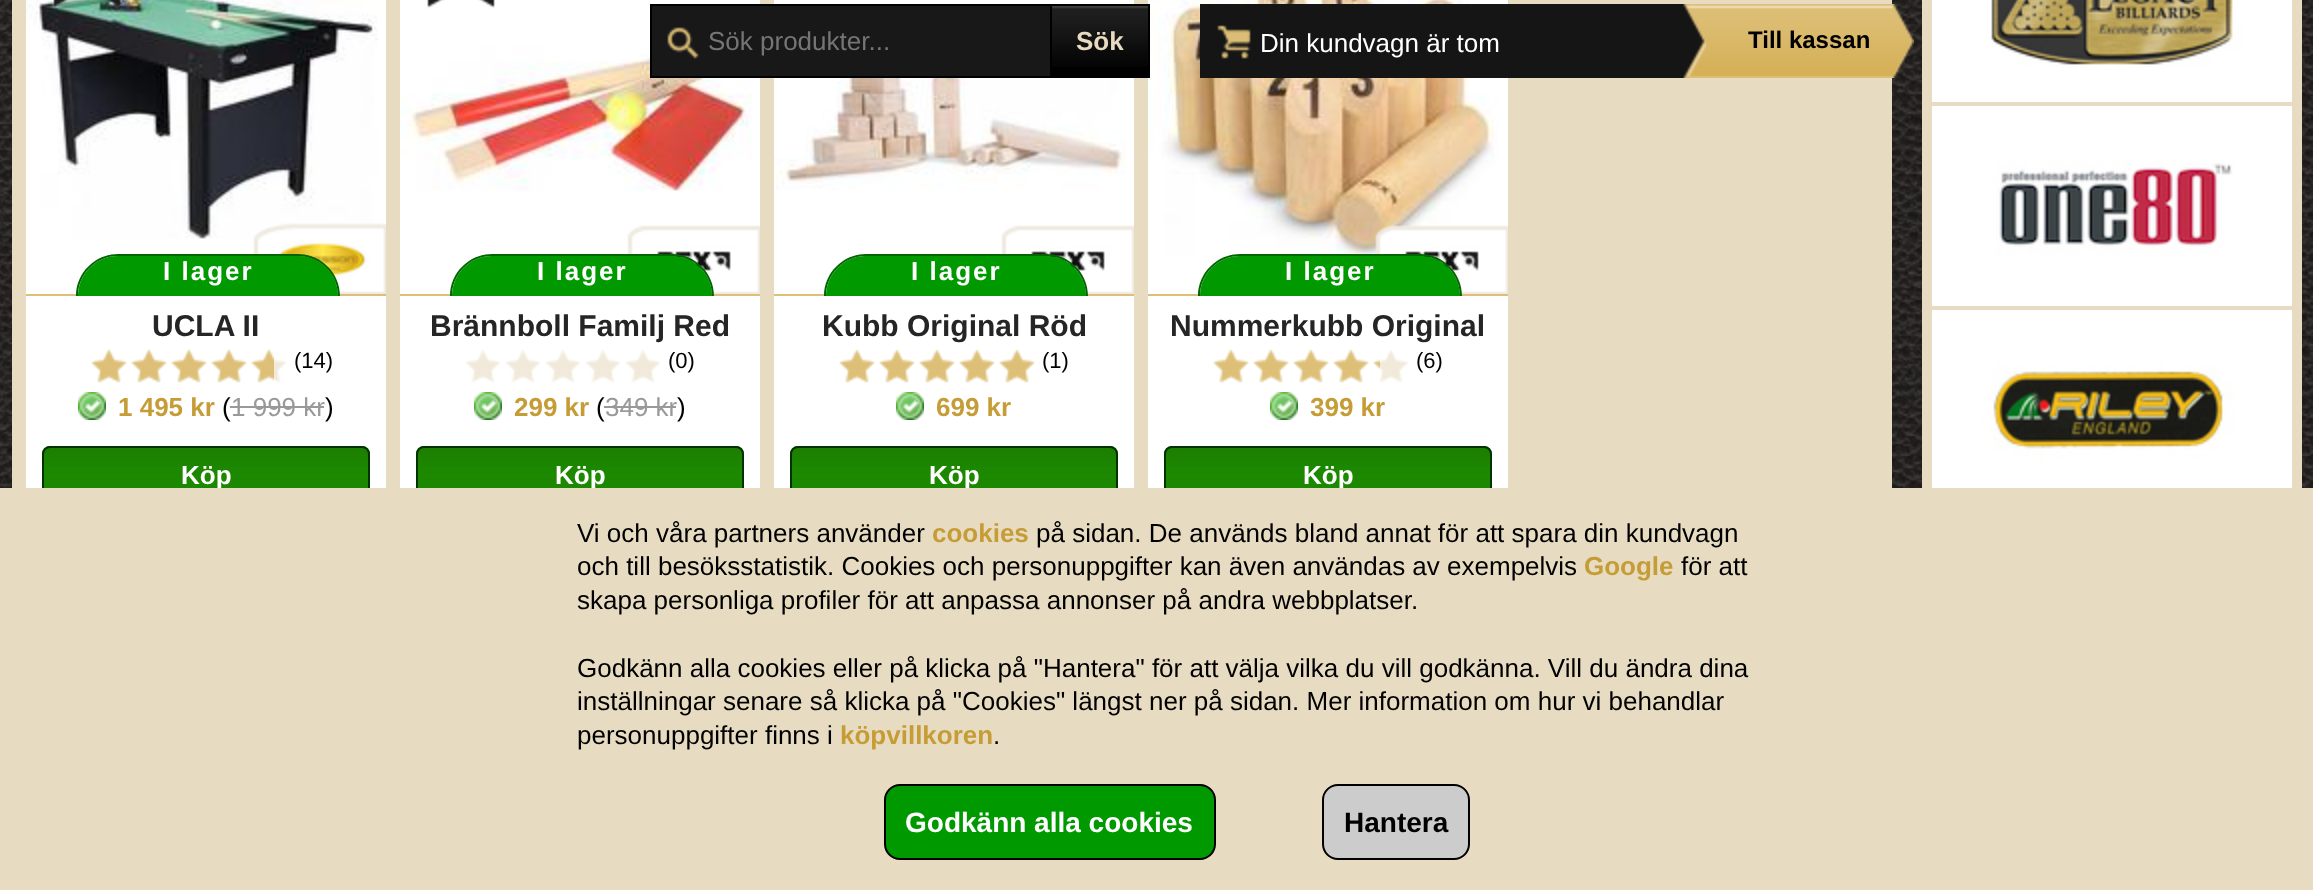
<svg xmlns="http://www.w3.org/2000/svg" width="2313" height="890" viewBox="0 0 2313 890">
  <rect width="100%" height="100%" fill="#fff"/>
  <image x="0" y="0" width="2313" height="488" href="img/1.png"/>
  <path d="M12 0h1880v488H12z" fill="#e7dcc1"/>
  <path d="M400 0h360v488H400z" fill="#fff"/>
  <image x="400" y="29" width="353" height="163" href="img/17.png"/>
  <path d="M774 0h360v488H774z" fill="#fff"/>
  <path d="M652 6h398v70H652z" fill="#181818"/>
  <image x="667" y="27" width="32" height="32" href="img/2.png"/>
  <path d="M650 4h400v2H650z" fill="#000"/>
  <path d="M650 76h400v2H650z" fill="#000"/>
  <path d="M650 4h2v74H650z" fill="#000"/>
  <path d="M1052 67h96v9H1052z" fill="#000"/>
  <image x="1052" y="6" width="96" height="61" href="img/3.png"/>
  <path d="M1148 0h360v488H1148z" fill="#fff"/>
  <image x="1148" y="0" width="350" height="255" href="img/21.png"/>
  <path d="M1051 5h98v72H1051z" fill="none" stroke="#000" stroke-width="2"/>
  <path d="M1200 4h505v74H1200z" fill="#151515"/>
  <image x="1217" y="25" width="34" height="34" href="img/4.png"/>
  <image x="1683" y="4" width="231" height="74" href="img/5.png"/>
  <path d="M1922 0h380v488H1922z" fill="#e7dcc1"/>
  <image x="1952" y="0" width="320" height="82" href="img/6.png"/>
  <path d="M1942 -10h340v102H1942z" fill="none" stroke="#fff" stroke-width="20"/>
  <image x="1952" y="126" width="320" height="160" href="img/7.png"/>
  <path d="M1942 116h340v180H1942z" fill="none" stroke="#fff" stroke-width="20"/>
  <image x="1952" y="330" width="320" height="158" href="img/8.png"/>
  <path d="M1942 320h340v180H1942z" fill="none" stroke="#fff" stroke-width="20"/>
  <path d="M26 0h360v488H26z" fill="#fff"/>
  <image x="26" y="0" width="352" height="239" href="img/9.png"/>
  <image x="53" y="0" width="68" height="8" href="img/10.png"/>
  <image x="253" y="223" width="133" height="71" href="img/11.png"/>
  <path d="M26 294h360v2H26z" fill="#ddbf77"/>
  <path d="M118 256H298C320 256 338 274 338 296H78C78 274 96 256 118 256Z" fill="#090"/>
  <path d="M118 254H298C321 254 340 273 340 296H76C76 273 95 254 118 254ZM118 256H298C320 256 338 274 338 296H78C78 274 96 256 118 256Z" fill="#060" fill-rule="evenodd"/>
  <image x="92" y="350" width="194" height="33" href="img/12.png"/>
  <image x="91" y="349" width="183" height="34" href="img/13.png"/>
  <image x="78" y="392" width="28" height="28" href="img/14.png"/>
  <image x="42" y="446" width="328" height="42" href="img/15.png"/>
  <rect x="43" y="447" width="326" height="54" rx="7" fill="none" stroke="#030" stroke-width="2"/>
  <image x="427" y="0" width="68" height="9" href="img/16.png"/>
  <image x="627" y="225" width="133" height="69" href="img/18.png"/>
  <path d="M400 294h360v2H400z" fill="#ddbf77"/>
  <path d="M492 256H672C694 256 712 274 712 296H452C452 274 470 256 492 256Z" fill="#090"/>
  <path d="M492 254H672C695 254 714 273 714 296H450C450 273 469 254 492 254ZM492 256H672C694 256 712 274 712 296H452C452 274 470 256 492 256Z" fill="#060" fill-rule="evenodd"/>
  <image x="466" y="350" width="194" height="33" href="img/12.png"/>
  <image x="474" y="392" width="28" height="28" href="img/14.png"/>
  <image x="416" y="446" width="328" height="42" href="img/15.png"/>
  <rect x="417" y="447" width="326" height="54" rx="7" fill="none" stroke="#030" stroke-width="2"/>
  <image x="774" y="78" width="352" height="112" href="img/19.png"/>
  <image x="1001" y="225" width="133" height="69" href="img/18.png"/>
  <path d="M774 294h360v2H774z" fill="#ddbf77"/>
  <path d="M866 256H1046C1068 256 1086 274 1086 296H826C826 274 844 256 866 256Z" fill="#090"/>
  <path d="M866 254H1046C1069 254 1088 273 1088 296H824C824 273 843 254 866 254ZM866 256H1046C1068 256 1086 274 1086 296H826C826 274 844 256 866 256Z" fill="#060" fill-rule="evenodd"/>
  <image x="840" y="350" width="194" height="33" href="img/12.png"/>
  <image x="839" y="349" width="201" height="34" href="img/20.png"/>
  <image x="896" y="392" width="28" height="28" href="img/14.png"/>
  <image x="790" y="446" width="328" height="42" href="img/15.png"/>
  <rect x="791" y="447" width="326" height="54" rx="7" fill="none" stroke="#030" stroke-width="2"/>
  <image x="1375" y="225" width="133" height="69" href="img/22.png"/>
  <path d="M1148 294h360v2H1148z" fill="#ddbf77"/>
  <path d="M1240 256H1420C1442 256 1460 274 1460 296H1200C1200 274 1218 256 1240 256Z" fill="#090"/>
  <path d="M1240 254H1420C1443 254 1462 273 1462 296H1198C1198 273 1217 254 1240 254ZM1240 256H1420C1442 256 1460 274 1460 296H1200C1200 274 1218 256 1240 256Z" fill="#060" fill-rule="evenodd"/>
  <image x="1214" y="350" width="194" height="33" href="img/12.png"/>
  <image x="1213" y="349" width="167" height="34" href="img/23.png"/>
  <image x="1270" y="392" width="28" height="28" href="img/14.png"/>
  <image x="1164" y="446" width="328" height="42" href="img/15.png"/>
  <rect x="1165" y="447" width="326" height="54" rx="7" fill="none" stroke="#030" stroke-width="2"/>
  <text x="708" y="50" font-family="Liberation Sans" font-size="26" fill="#757575">Sök produkter...</text>
  <text x="1076" y="50" font-family="Liberation Sans" font-size="26" font-weight="bold" fill="#e7dcc1">Sök</text>
  <text x="1260" y="52" font-family="Liberation Sans" font-size="26" fill="#fff">Din kundvagn är tom</text>
  <text x="1748" y="48" font-family="Liberation Sans" font-size="24" font-weight="bold" fill="#000">Till kassan</text>
  <text x="163" y="280" font-family="Liberation Sans" font-size="26" font-weight="bold" letter-spacing="2" fill="#fff">I lager</text>
  <text x="152" y="336" font-family="Liberation Sans" font-size="30" font-weight="bold" fill="#252525">UCLA II</text>
  <text x="294" y="368" font-family="Liberation Sans" font-size="22" fill="#000">(14)</text>
  <text x="118" y="416" font-family="Liberation Sans" font-size="26" font-weight="bold" fill="#c69c37">1 495 kr</text>
  <text x="222" y="416" font-family="Liberation Sans" font-size="26" fill="#000">(</text>
  <text x="231" y="416" font-family="Liberation Sans" font-size="26" fill="#999">1 999 kr</text>
  <path d="M230 406h94v2H230z" fill="#999"/>
  <text x="325" y="416" font-family="Liberation Sans" font-size="26" fill="#000">)</text>
  <text x="181" y="484" font-family="Liberation Sans" font-size="26" font-weight="bold" fill="#fff">Köp</text>
  <text x="537" y="280" font-family="Liberation Sans" font-size="26" font-weight="bold" letter-spacing="2" fill="#fff">I lager</text>
  <text x="430" y="336" font-family="Liberation Sans" font-size="30" font-weight="bold" fill="#252525">Brännboll Familj Red</text>
  <text x="668" y="368" font-family="Liberation Sans" font-size="22" fill="#000">(0)</text>
  <text x="514" y="416" font-family="Liberation Sans" font-size="26" font-weight="bold" fill="#c69c37">299 kr</text>
  <text x="596" y="416" font-family="Liberation Sans" font-size="26" fill="#000">(</text>
  <text x="605" y="416" font-family="Liberation Sans" font-size="26" fill="#999">349 kr</text>
  <path d="M604 406h72v2H604z" fill="#999"/>
  <text x="677" y="416" font-family="Liberation Sans" font-size="26" fill="#000">)</text>
  <text x="555" y="484" font-family="Liberation Sans" font-size="26" font-weight="bold" fill="#fff">Köp</text>
  <text x="911" y="280" font-family="Liberation Sans" font-size="26" font-weight="bold" letter-spacing="2" fill="#fff">I lager</text>
  <text x="822" y="336" font-family="Liberation Sans" font-size="30" font-weight="bold" fill="#252525">Kubb Original Röd</text>
  <text x="1042" y="368" font-family="Liberation Sans" font-size="22" fill="#000">(1)</text>
  <text x="936" y="416" font-family="Liberation Sans" font-size="26" font-weight="bold" fill="#c69c37">699 kr</text>
  <text x="929" y="484" font-family="Liberation Sans" font-size="26" font-weight="bold" fill="#fff">Köp</text>
  <text x="1285" y="280" font-family="Liberation Sans" font-size="26" font-weight="bold" letter-spacing="2" fill="#fff">I lager</text>
  <text x="1170" y="336" font-family="Liberation Sans" font-size="30" font-weight="bold" fill="#252525">Nummerkubb Original</text>
  <text x="1416" y="368" font-family="Liberation Sans" font-size="22" fill="#000">(6)</text>
  <text x="1310" y="416" font-family="Liberation Sans" font-size="26" font-weight="bold" fill="#c69c37">399 kr</text>
  <text x="1303" y="484" font-family="Liberation Sans" font-size="26" font-weight="bold" fill="#fff">Köp</text>
  <path d="M0 488h2313v402H0z" fill="#e7dcc1"/>
  <text x="577" y="542" font-family="Liberation Sans" font-size="26" fill="#000">Vi och våra partners använder</text>
  <text x="932" y="542" font-family="Liberation Sans" font-size="26" font-weight="bold" fill="#c69c37">cookies</text>
  <g font-family="Liberation Sans" font-size="26" fill="#000">
    <text x="1036" y="542">på sidan. De används bland annat för att spara din kundvagn</text>
    <text x="577" y="575">och till besöksstatistik. Cookies och personuppgifter kan även användas av exempelvis</text>
  </g>
  <text x="1584" y="575" font-family="Liberation Sans" font-size="26" font-weight="bold" fill="#c69c37">Google</text>
  <g font-family="Liberation Sans" font-size="26" fill="#000">
    <text x="1681" y="575">för att</text>
    <text x="577" y="609">skapa personliga profiler för att anpassa annonser på andra webbplatser.</text>
    <text x="577" y="677">Godkänn alla cookies eller på klicka på "Hantera" för att välja vilka du vill godkänna. Vill du ändra dina</text>
    <text x="577" y="710">inställningar senare så klicka på "Cookies" längst ner på sidan. Mer information om hur vi behandlar</text>
    <text x="577" y="744">personuppgifter finns i</text>
  </g>
  <text x="840" y="744" font-family="Liberation Sans" font-size="26" font-weight="bold" fill="#c69c37">köpvillkoren</text>
  <text x="993" y="744" font-family="Liberation Sans" font-size="26" fill="#000">.</text>
  <rect x="885" y="785" width="330" height="74" rx="15" fill="#090" stroke="#000" stroke-width="2"/>
  <text x="905" y="832" font-family="Liberation Sans" font-size="28" font-weight="bold" fill="#fff">Godkänn alla cookies</text>
  <rect x="1323" y="785" width="146" height="74" rx="15" fill="#ccc" stroke="#000" stroke-width="2"/>
  <text x="1344" y="832" font-family="Liberation Sans" font-size="28" font-weight="bold" fill="#000">Hantera</text>
</svg>
